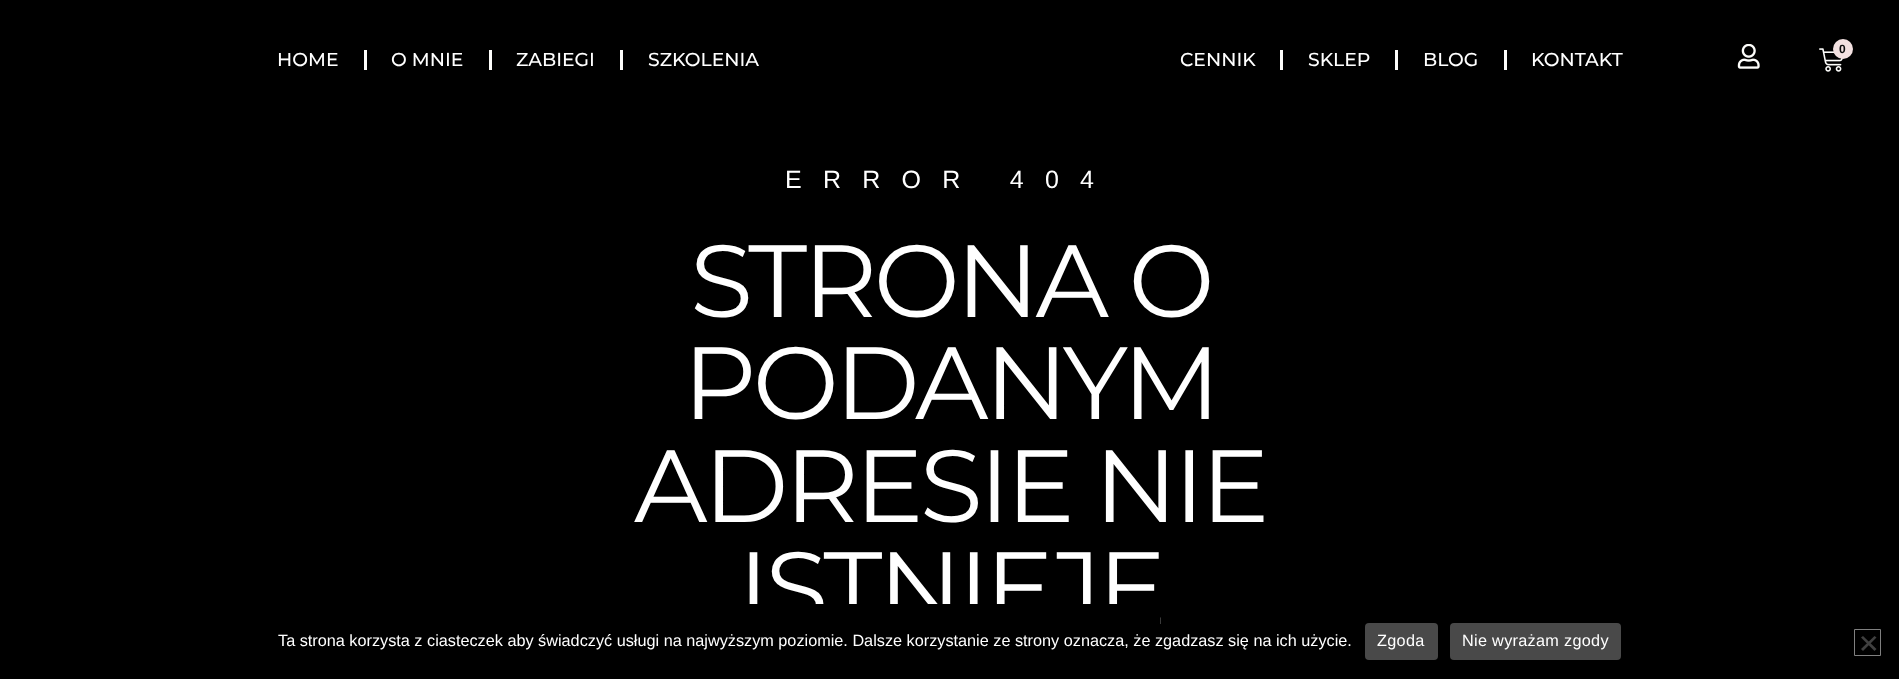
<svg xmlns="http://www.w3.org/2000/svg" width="1899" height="679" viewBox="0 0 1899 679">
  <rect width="100%" height="100%" fill="#000"/>
  <image x="1737" y="44" width="23" height="25" href="img/1.png"/>
  <image x="1819" y="48" width="24" height="24" href="img/2.png"/>
  <circle cx="1843" cy="49" r="10" fill="#f3e1e1"/>
  <path d="M364 50h3v20H364z" fill="#fdfdfb"/>
  <path d="M489 50h3v20H489z" fill="#fdfdfb"/>
  <path d="M620 50h3v20H620z" fill="#fdfdfb"/>
  <path d="M1280 50h3v20H1280z" fill="#fdfdfb"/>
  <path d="M1395 50h3v20H1395z" fill="#fdfdfb"/>
  <path d="M1504 50h3v20H1504z" fill="#fdfdfb"/>
  <rect x="1365" y="623" width="73" height="37" rx="4" fill="#494949"/>
  <rect x="1450" y="623" width="171" height="37" rx="4" fill="#494949"/>
  <path d="M1854.5 629.5h26v26H1854.5z" fill="none" stroke="#808080"/>
  <path d="M1874.5 636L1876.5 637.5L1863 651L1861 649Z" fill="#404040"/>
  <path d="M1861 637.5L1863 636L1876.5 649L1874.5 651Z" fill="#404040"/>
  <text x="1839" y="53" font-family="Liberation Sans" font-size="12" font-weight="bold" fill="#0c0c0c">0</text>
  <g font-family="Montserrat" font-size="18.75" font-weight="500" fill="#fff">
    <text x="277" y="66">HOME</text>
    <text x="391" y="66">O MNIE</text>
    <text x="516" y="66">ZABIEGI</text>
    <text x="648" y="66">SZKOLENIA</text>
    <text x="1180" y="66">CENNIK</text>
    <text x="1308" y="66">SKLEP</text>
    <text x="1423" y="66">BLOG</text>
    <text x="1531" y="66">KONTAKT</text>
  </g>
  <text x="785" y="188" font-family="Liberation Sans" font-size="25" letter-spacing="21.25" fill="#fff">ERROR 404</text>
  <g font-family="Montserrat" font-size="102.5" letter-spacing="-3.75" fill="#fff">
    <text x="690" y="317">STRONA O</text>
    <text x="683" y="419">PODANYM</text>
    <text x="634" y="522">ADRESIE NIE</text>
    <text x="738" y="624">ISTNIEJE</text>
  </g>
  <path d="M749 604h411v21H749z" fill="#000"/>
  <text x="278" y="646" font-family="Liberation Sans" font-size="16.25" fill="#fff">Ta strona korzysta z ciasteczek aby świadczyć usługi na najwyższym poziomie. Dalsze korzystanie ze strony oznacza, że zgadzasz się na ich użycie.</text>
  <g font-family="Liberation Sans" font-size="16.25" letter-spacing="0.3" fill="#fff">
    <text x="1377" y="646">Zgoda</text>
    <text x="1462" y="646">Nie wyrażam zgody</text>
  </g>
</svg>
